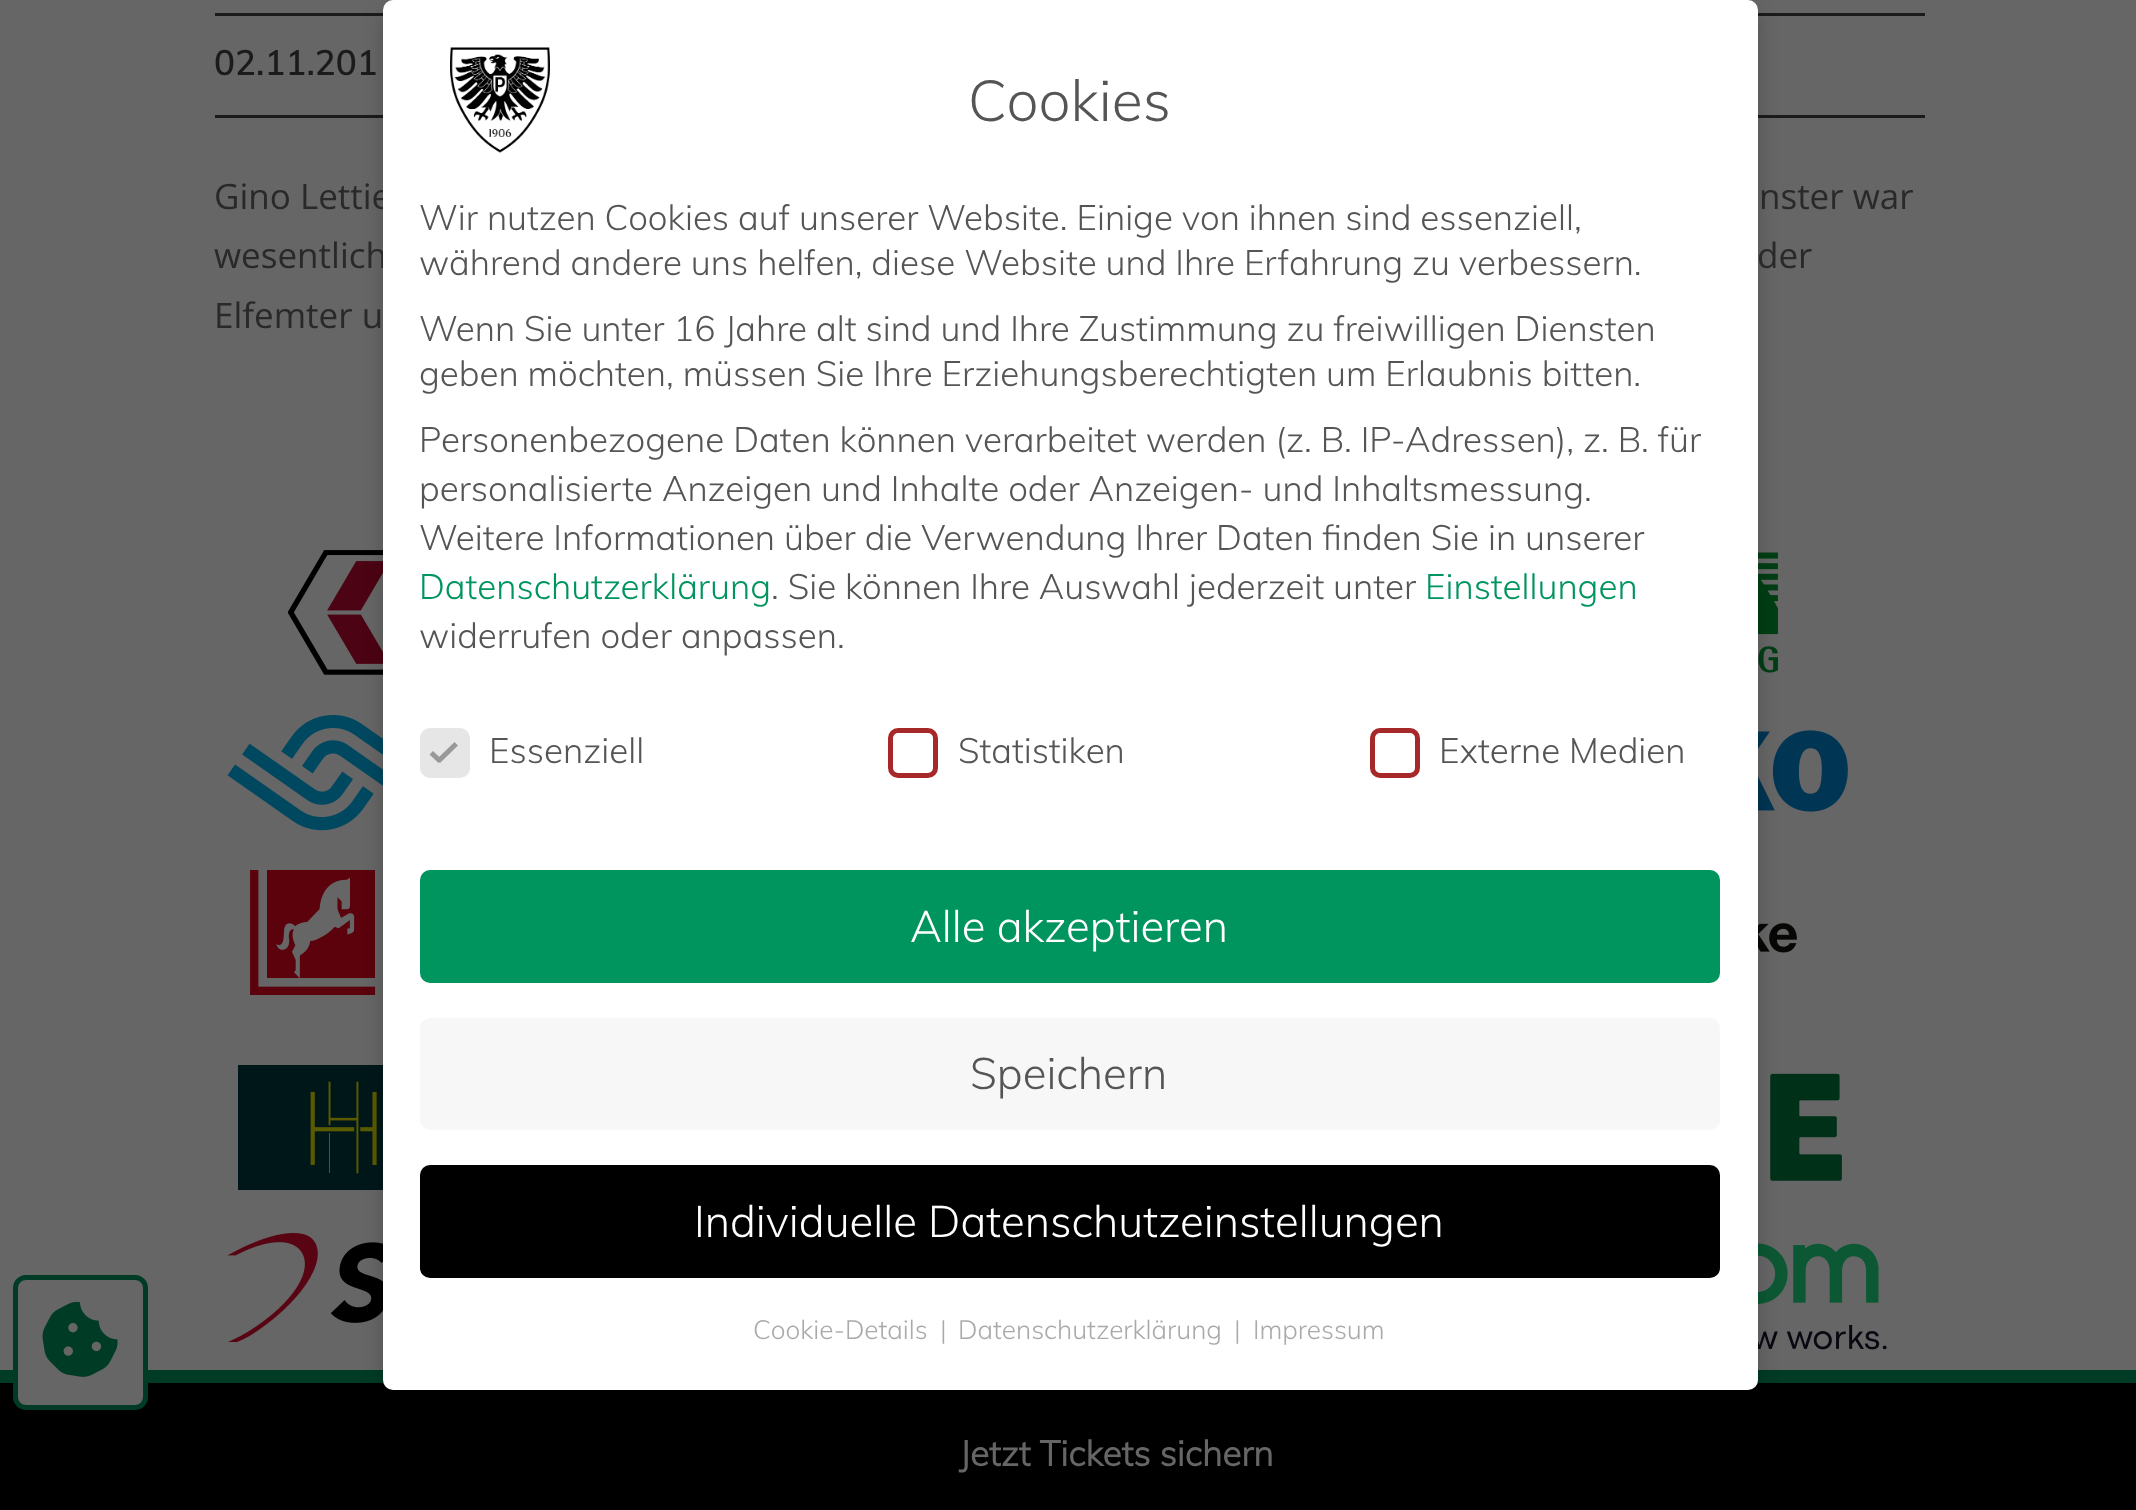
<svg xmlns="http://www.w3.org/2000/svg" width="2136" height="1510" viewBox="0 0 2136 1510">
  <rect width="100%" height="100%" fill="#666"/>
  <path d="M215 13h1710v3H215z" fill="#1b1b1b"/>
  <path d="M215 115h1710v3H215z" fill="#1b1b1b"/>
  <path d="M0 1383h2136v127H0z" fill="#000"/>
  <path d="M0 1370h2136v13H0z" fill="#003b26"/>
  <rect x="15.5" y="1277.5" width="130" height="130" rx="10.5" fill="#666" stroke="#003b26" stroke-width="5"/>
  <image x="42" y="1301" width="76" height="76" href="img/1.png"/>
  <image x="288" y="550" width="95" height="125" href="img/2.png"/>
  <image x="1758" y="552" width="20" height="121" href="img/3.png"/>
  <image x="227" y="715" width="156" height="116" href="img/4.png"/>
  <image x="1758" y="730" width="90" height="82" href="img/5.png"/>
  <image x="250" y="870" width="126" height="125" href="img/6.png"/>
  <image x="1758" y="923" width="39" height="30" href="img/7.png"/>
  <image x="238" y="1065" width="145" height="125" href="img/8.png"/>
  <image x="1770" y="1073" width="72" height="108" href="img/9.png"/>
  <image x="227" y="1233" width="156" height="109" href="img/10.png"/>
  <image x="1758" y="1243" width="129" height="107" href="img/11.png"/>
  <rect x="383" y="10" width="1375" height="1390" rx="10" fill="#00000033" filter="blur(10px)"/>
  <text x="214" y="75" font-family="Muli" font-size="35" font-weight="600" fill="#1b1b1b">02.11.201</text>
  <g font-family="Open Sans" font-size="35" fill="#292929">
    <text x="214" y="209">Gino Lettie</text>
    <text x="1759" y="209">nster war</text>
    <text x="214" y="268">wesentlich</text>
    <text x="1757" y="268">der</text>
    <text x="214" y="328">Elfemter u</text>
  </g>
  <text x="959" y="1466" font-family="Muli" font-size="35" font-weight="bold" fill="#666">Jetzt Tickets sichern</text>
  <rect x="383" width="1375" height="1390" rx="10" fill="#fff"/>
  <image x="450" y="47" width="100" height="106" href="img/12.png"/>
  <text x="968" y="121" font-family="Muli" font-size="57" font-weight="300" fill="#555">Cookies</text>
  <g font-family="Muli" font-size="35" font-weight="300" fill="#555">
    <text x="419" y="230">Wir nutzen Cookies auf unserer Website. Einige von ihnen sind essenziell,</text>
    <text x="419" y="275">während andere uns helfen, diese Website und Ihre Erfahrung zu verbessern.</text>
    <text x="419" y="341">Wenn Sie unter 16 Jahre alt sind und Ihre Zustimmung zu freiwilligen Diensten</text>
    <text x="419" y="386">geben möchten, müssen Sie Ihre Erziehungsberechtigten um Erlaubnis bitten.</text>
    <text x="419" y="452">Personenbezogene Daten können verarbeitet werden (z. B. IP-Adressen), z. B. für</text>
    <text x="419" y="501">personalisierte Anzeigen und Inhalte oder Anzeigen- und Inhaltsmessung.</text>
    <text x="419" y="550">Weitere Informationen über die Verwendung Ihrer Daten finden Sie in unserer</text>
  </g>
  <text x="419" y="599" font-family="Muli" font-size="35" font-weight="300" fill="#00945e">Datenschutzerklärung</text>
  <text x="771" y="599" font-family="Muli" font-size="35" font-weight="300" fill="#555">. Sie können Ihre Auswahl jederzeit unter</text>
  <text x="1425" y="599" font-family="Muli" font-size="35" font-weight="300" fill="#00945e">Einstellungen</text>
  <text x="419" y="648" font-family="Muli" font-size="35" font-weight="300" fill="#555">widerrufen oder anpassen.</text>
  <rect x="422.5" y="730.5" width="45" height="45" rx="7.5" fill="#e6e6e6" stroke="#e6e6e6" stroke-width="5"/>
  <path d="M454.5 742L458 745.5L440 763L436.5 759.5Z" fill="#999"/>
  <path d="M433 751L442 759.5L438.5 763L429.5 754.5Z" fill="#999"/>
  <text x="489" y="763" font-family="Muli" font-size="35" font-weight="300" fill="#555">Essenziell</text>
  <rect x="890.5" y="730.5" width="45" height="45" rx="7.5" fill="none" stroke="#a72828" stroke-width="5"/>
  <text x="958" y="763" font-family="Muli" font-size="35" font-weight="300" fill="#555">Statistiken</text>
  <rect x="1372.5" y="730.5" width="45" height="45" rx="7.5" fill="none" stroke="#a72828" stroke-width="5"/>
  <text x="1439" y="763" font-family="Muli" font-size="35" font-weight="300" fill="#555">Externe Medien</text>
  <rect x="420" y="870" width="1300" height="113" rx="10" fill="#00945e"/>
  <text x="910" y="942" font-family="Muli" font-size="43.75" font-weight="300" fill="#fff">Alle akzeptieren</text>
  <rect x="420" y="1018" width="1300" height="112" rx="10" fill="#f7f7f7"/>
  <text x="970" y="1089" font-family="Muli" font-size="43.75" font-weight="300" fill="#555">Speichern</text>
  <rect x="420" y="1165" width="1300" height="113" rx="10" fill="#000"/>
  <text x="694" y="1237" font-family="Muli" font-size="43.75" font-weight="300" fill="#fff">Individuelle Datenschutzeinstellungen</text>
  <g font-family="Muli" font-size="26.25" font-weight="300" fill="#aaa">
    <text x="753" y="1339">Cookie-Details</text>
    <text x="940" y="1339">|</text>
    <text x="958" y="1339">Datenschutzerklärung</text>
    <text x="1234" y="1339">|</text>
    <text x="1253" y="1339">Impressum</text>
  </g>
</svg>
